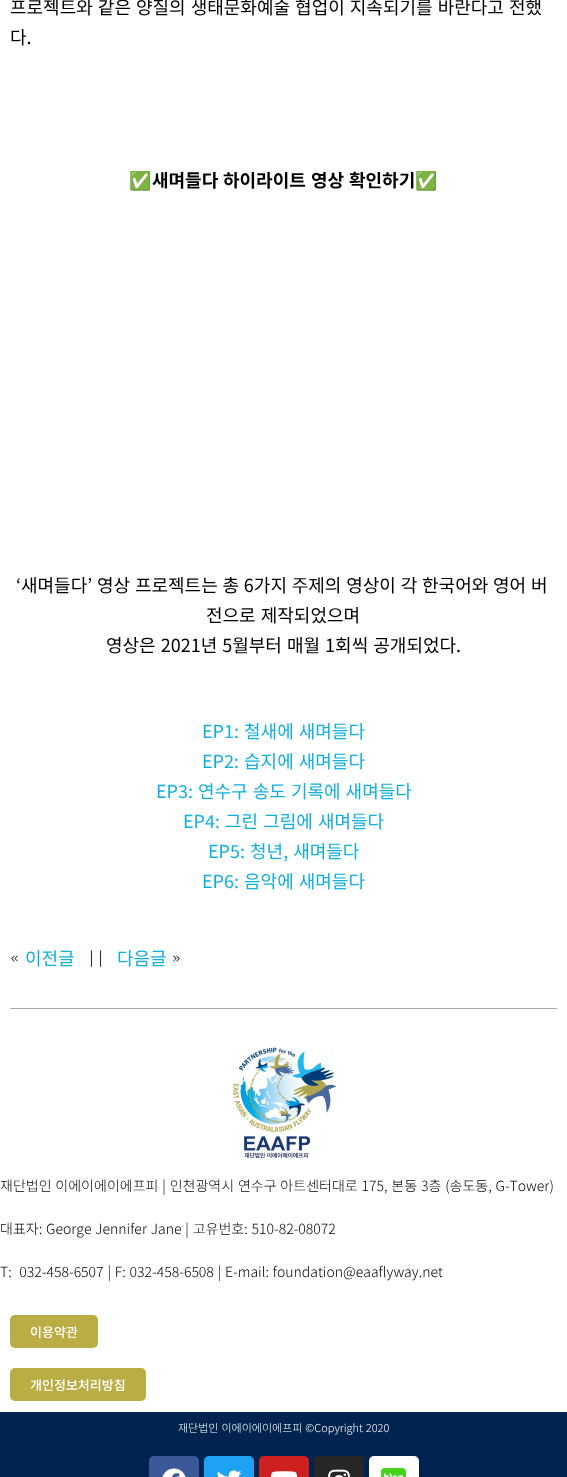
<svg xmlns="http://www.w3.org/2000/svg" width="567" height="1477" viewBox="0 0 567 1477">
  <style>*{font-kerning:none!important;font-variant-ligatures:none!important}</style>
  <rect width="100%" height="100%" fill="#fff"/>
  <path d="M10 1008h547v1H10z" fill="#ababab"/>
  <image x="233" y="1047" width="103" height="111" href="img/1.png"/>
  <rect x="10" y="1315" width="88" height="33" rx="5" fill="#baad44"/>
  <rect x="10" y="1368" width="136" height="33" rx="5" fill="#baad44"/>
  <path d="M0 1412h567v65H0z" fill="#00244f"/>
  <rect x="149" y="1456" width="50" height="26" rx="5" fill="#3b5998"/>
  <image x="162" y="1468" width="24" height="9" href="img/2.png"/>
  <rect x="204" y="1456" width="50" height="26" rx="5" fill="#1da1f2"/>
  <image x="217" y="1470" width="25" height="7" href="img/3.png"/>
  <rect x="259" y="1456" width="50" height="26" rx="5" fill="#cd201f"/>
  <image x="270" y="1471" width="28" height="6" href="img/4.png"/>
  <rect x="314" y="1456" width="50" height="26" rx="5" fill="#262626"/>
  <image x="328" y="1469" width="22" height="8" href="img/5.png"/>
  <rect x="369" y="1456" width="50" height="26" rx="5" fill="#fff"/>
  <image x="381" y="1468" width="25" height="9" href="img/6.png"/>
  <g font-family="Noto Sans KR" font-size="18" fill="#000">
    <text x="10" y="14" word-spacing="1">프로젝트와 같은 양질의 생태문화예술 협업이 지속되기를 바란다고 전했</text>
    <text x="10" y="44">다.</text>
  </g>
  <text x="129" y="187" font-family="Noto Color Emoji" font-size="18" fill="#000">✅</text>
  <g font-family="Noto Sans KR" font-size="18" font-weight="bold" fill="#000">
    <text x="152" y="187">새며들다</text>
    <text x="223" y="187">하이라이트</text>
    <text x="311" y="187">영상</text>
    <text x="349" y="187">확인하기</text>
  </g>
  <text x="415" y="187" font-family="Noto Color Emoji" font-size="18" fill="#000">✅</text>
  <g font-family="Noto Sans KR" font-size="18" fill="#000">
    <text x="16" y="592" word-spacing="0.75">‘새며들다’ 영상 프로젝트는 총 6가지 주제의 영상이 각 한국어와 영어 버</text>
    <text x="206" y="622" word-spacing="1">전으로 제작되었으며</text>
    <text x="106" y="652" word-spacing="1">영상은 2021년 5월부터 매월 1회씩 공개되었다.</text>
  </g>
  <g font-family="Noto Sans KR" font-size="18" fill="#11afe0">
    <text x="202" y="738" word-spacing="1">EP1: 철새에 새며들다</text>
    <text x="202" y="768" word-spacing="1">EP2: 습지에 새며들다</text>
    <text x="156" y="798" word-spacing="1">EP3: 연수구 송도 기록에 새며들다</text>
    <text x="183" y="828" word-spacing="1">EP4: 그린 그림에 새며들다</text>
    <text x="208" y="858" word-spacing="1">EP5: 청년, 새며들다</text>
    <text x="202" y="888" word-spacing="1">EP6: 음악에 새며들다</text>
  </g>
  <text x="10" y="965" font-family="Dotum" font-size="18" fill="#333">«</text>
  <text x="25" y="965" font-family="Noto Sans KR" font-size="18" fill="#11afe0">이전글</text>
  <text x="87" y="965" font-family="Dotum" font-size="18" fill="#333">||</text>
  <text x="117" y="965" font-family="Noto Sans KR" font-size="18" fill="#11afe0">다음글</text>
  <text x="172" y="965" font-family="Dotum" font-size="18" fill="#333">»</text>
  <g font-family="Noto Sans KR" font-size="14" font-weight="300" fill="#000">
    <text x="0" y="1191" word-spacing="0.75">재단법인 이에이에이에프피 | 인천광역시 연수구 아트센터대로 175, 본동 3층 (송도동, G-Tower)</text>
    <text x="0" y="1234" word-spacing="0.75">대표자: George Jennifer Jane | 고유번호: 510-82-08072</text>
    <text x="0" y="1277" word-spacing="0.75" xml:space="preserve">T:  032-458-6507 | F: 032-458-6508 | E-mail: foundation@eaaflyway.net</text>
  </g>
  <g font-family="Noto Sans KR" font-size="13" font-weight="500" fill="#fff">
    <text x="30" y="1337">이용약관</text>
    <text x="30" y="1390">개인정보처리방침</text>
  </g>
  <text x="178" y="1432" word-spacing="0.5" font-family="Noto Sans KR" font-size="11" font-weight="300" fill="#fff">재단법인 이에이에이에프피 ©Copyright 2020</text>
</svg>
